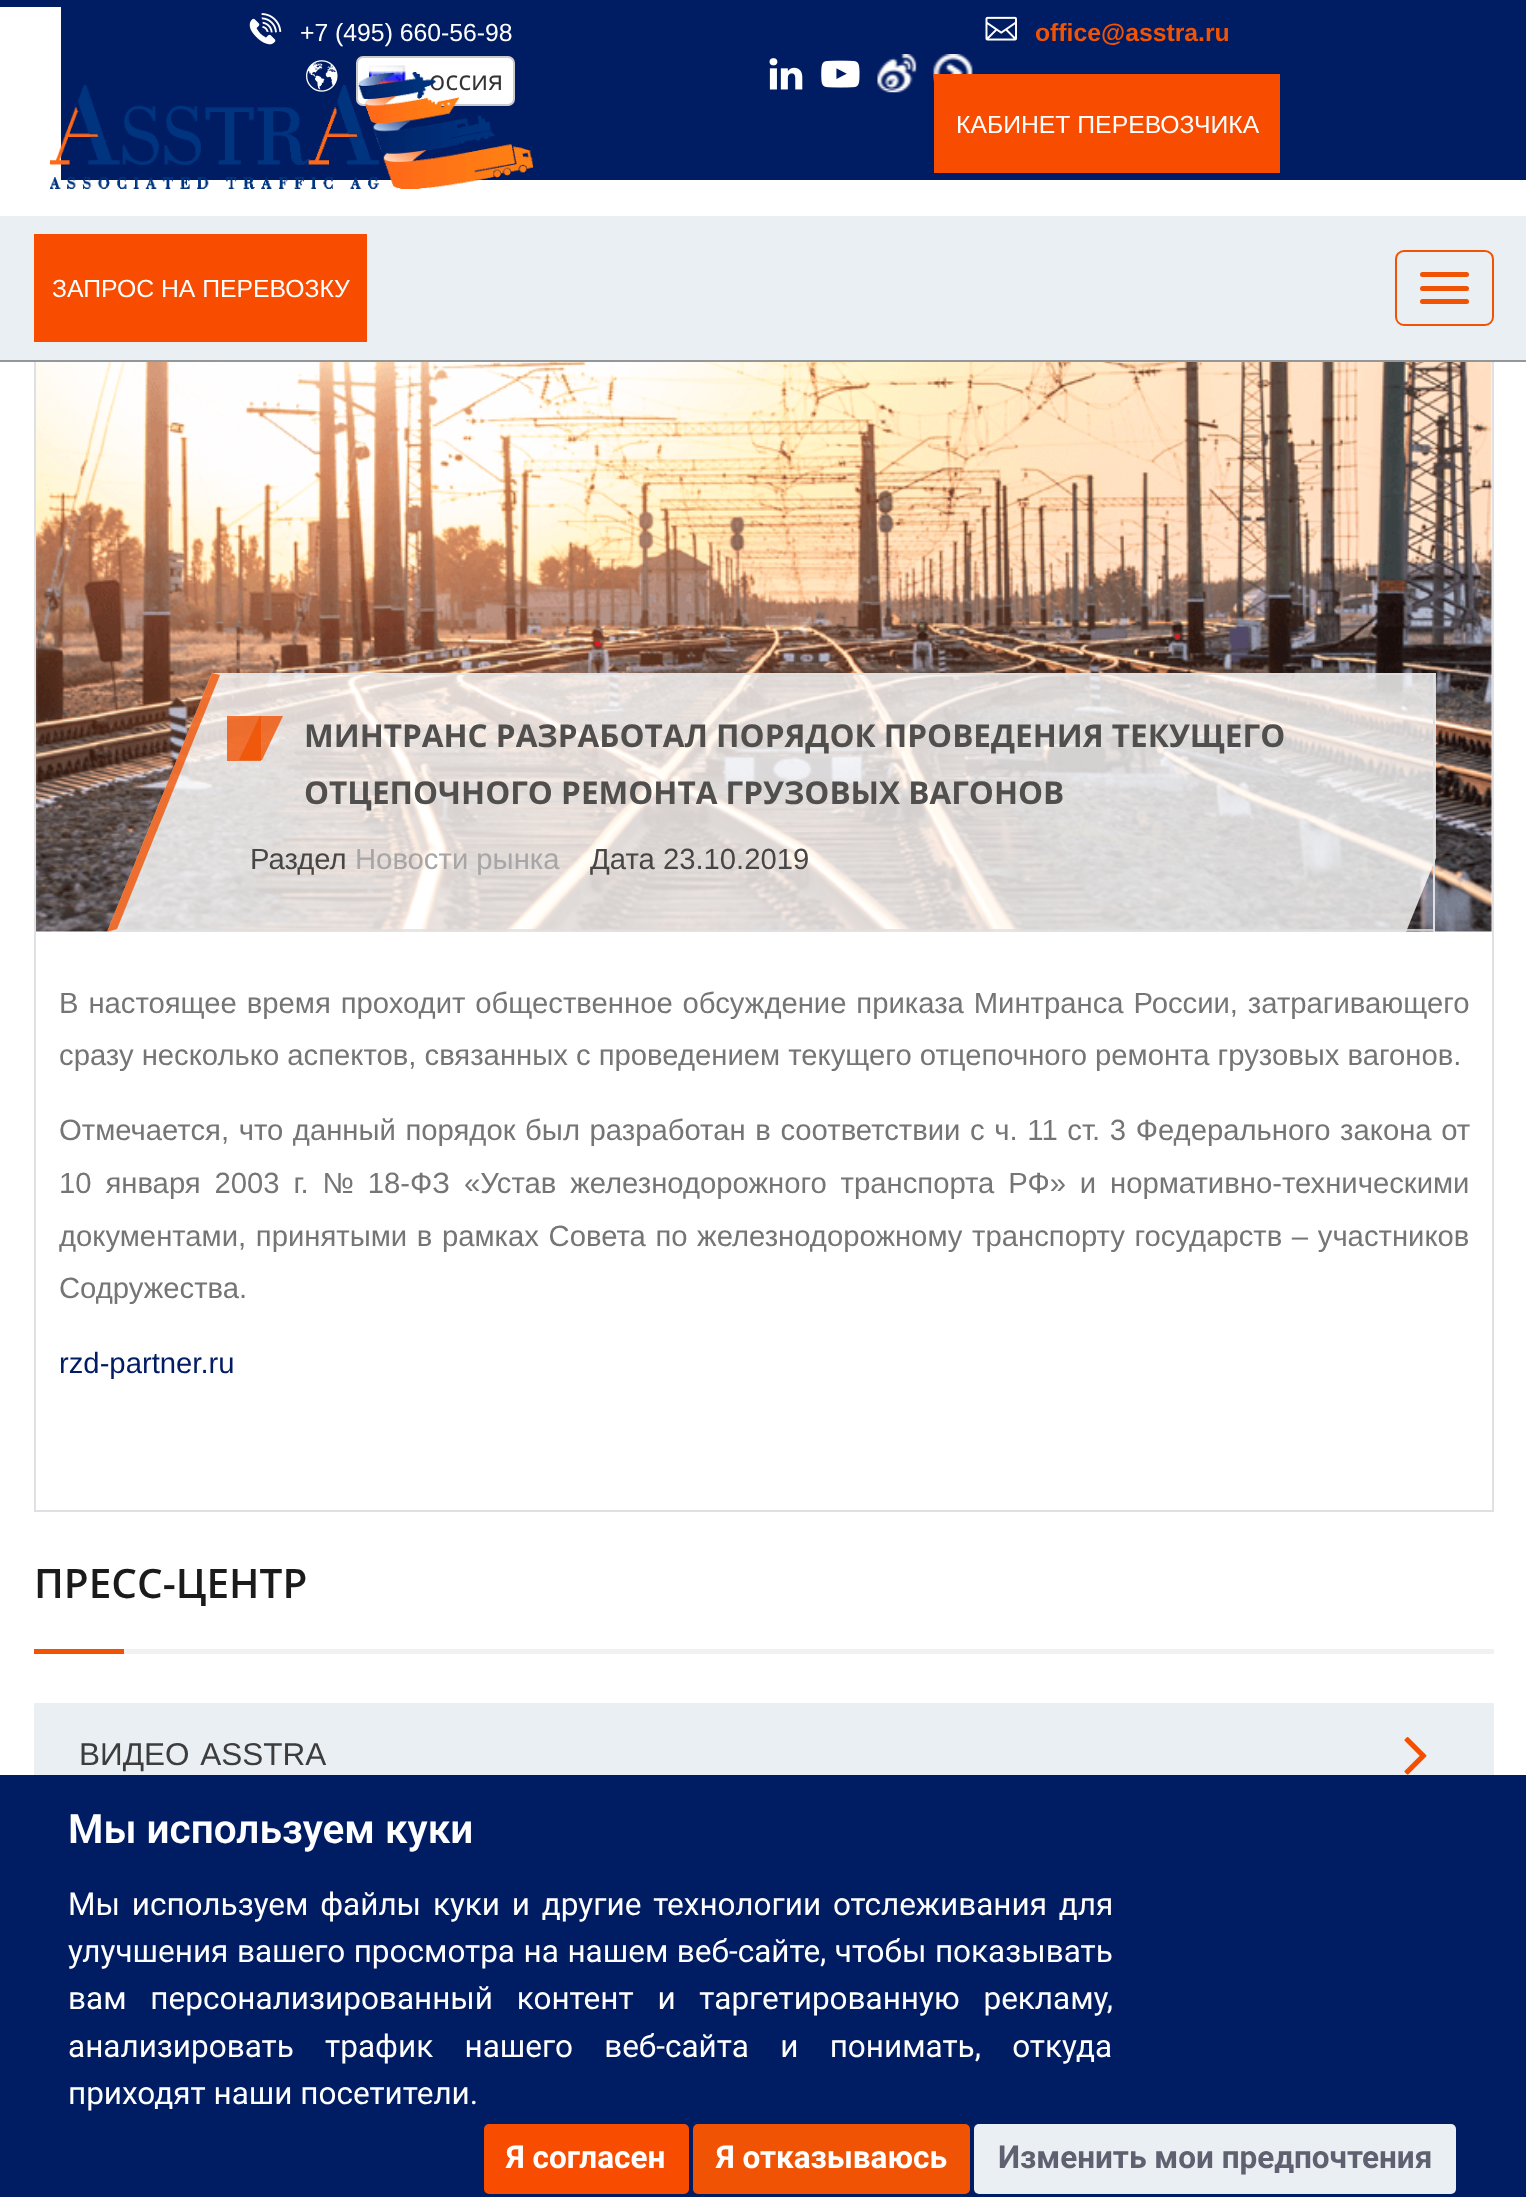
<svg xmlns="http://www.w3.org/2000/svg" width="1526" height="2197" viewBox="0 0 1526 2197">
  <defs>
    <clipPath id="clip1"><path d="M92 673h1344v259H92z"/></clipPath>
  </defs>
  <rect width="100%" height="100%" fill="#fff"/>
  <path d="M0 0h1526v7H0z" fill="#001d64"/>
  <path d="M61 7h1465v173H61z" fill="#001d64"/>
  <image x="249" y="13" width="33" height="32" href="img/2.png"/>
  <image x="985" y="16" width="32" height="25" href="img/3.png"/>
  <image x="306" y="60" width="32" height="32" href="img/4.png"/>
  <rect x="357" y="57" width="157" height="48" rx="6" fill="#fff" stroke="#ccc" stroke-width="2"/>
  <image x="369" y="65" width="37" height="20" href="img/5.png"/>
  <image x="769" y="58" width="34" height="32" href="img/6.png"/>
  <image x="821" y="60" width="39" height="28" href="img/7.png"/>
  <image x="877" y="54" width="40" height="39" href="img/8.png"/>
  <image x="933" y="54" width="40" height="28" href="img/9.png"/>
  <path d="M934 74h346v99H934z" fill="#f84c00"/>
  <path d="M35 345h1458v1166H35z" fill="none" stroke="#dee0e3" stroke-width="2"/>
  <path d="M0 216h1526v144H0z" fill="#eaeff3"/>
  <path d="M0 360h1526v2H0z" fill="#949698"/>
  <path d="M34 234h333v108H34z" fill="#f84c00"/>
  <rect x="1396" y="251" width="97" height="74" rx="8" fill="none" stroke="#f05304" stroke-width="2"/>
  <rect x="1420" y="272" width="49" height="5" rx="2.5" fill="#f05304"/>
  <rect x="1420" y="286" width="49" height="5" rx="2.5" fill="#f05304"/>
  <rect x="1420" y="299" width="49" height="5" rx="2.5" fill="#f05304"/>
  <image x="36" y="362" width="1456" height="570" href="img/10.png"/>
  <g clip-path="url(#clip1)">
    <path d="M212 673H1511L1406 932H107Z" fill="#ffffffcc"/>
    <path d="M212 673H1511L1510 675H220Z" fill="#e0e0e0cc"/>
  </g>
  <path d="M1406 932H107L117 929H1407Z" fill="#e0e0e0cc"/>
  <path d="M107 932L212 673L220 675L117 929Z" fill="#f05304cc"/>
  <path d="M227 716h34v45H227z" fill="#f05304cc"/>
  <path d="M260 716H283L262 760H239Z" fill="#f05304cc"/>
  <path d="M1406 929h27v2H1406z" fill="#e0e0e0cc"/>
  <path d="M1433 673h2v259H1433z" fill="#e0e0e0"/>
  <path d="M34 1649h90v5H34z" fill="#f05304"/>
  <path d="M124 1649h1370v5H124z" fill="#f1f1f1"/>
  <path d="M34 1703h1460v72H34z" fill="#eaeff3"/>
  <image x="1404" y="1737" width="23" height="38" href="img/11.png"/>
  <path d="M0 1775h1526v422H0z" fill="#001d64"/>
  <rect x="484" y="2124" width="205" height="70" rx="5" fill="#f84c00"/>
  <rect x="693" y="2124" width="277" height="70" rx="5" fill="#f05304"/>
  <rect x="974" y="2124" width="482" height="70" rx="5" fill="#eaeff3"/>
  <text x="300" y="41" font-family="Liberation Sans" font-size="24.75" fill="#fff">+7 (495) 660-56-98</text>
  <text x="1035" y="41" font-family="Liberation Sans" font-size="24.75" font-weight="bold" fill="#f05304">office@asstra.ru</text>
  <text x="429" y="90" font-family="Open Sans" font-size="27" fill="#333">оссия</text>
  <image x="50" y="72" width="483" height="117" href="img/1.png"/>
  <g font-family="Liberation Sans" font-size="24.75" fill="#fff">
    <text x="956" y="133">КАБИНЕТ ПЕРЕВОЗЧИКА</text>
    <text x="52" y="297">ЗАПРОС НА ПЕРЕВОЗКУ</text>
  </g>
  <g font-family="Open Sans" font-size="31.5" font-weight="bold" fill="#504f4e">
    <text x="304" y="747">МИНТРАНС РАЗРАБОТАЛ ПОРЯДОК ПРОВЕДЕНИЯ ТЕКУЩЕГО</text>
    <text x="304" y="804">ОТЦЕПОЧНОГО РЕМОНТА ГРУЗОВЫХ ВАГОНОВ</text>
  </g>
  <text x="250" y="869" font-family="Liberation Sans" font-size="29.25" fill="#474645">Раздел</text>
  <text x="355" y="869" font-family="Liberation Sans" font-size="29.25" fill="#a7a5a5">Новости рынка</text>
  <text x="590" y="869" font-family="Liberation Sans" font-size="29.25" fill="#474645">Дата 23.10.2019</text>
  <g font-family="Liberation Sans" font-size="29.25" fill="#757575">
    <text x="59" y="1013" word-spacing="1.75">В настоящее время проходит общественное обсуждение приказа Минтранса России, затрагивающего</text>
    <text x="59" y="1065">сразу несколько аспектов, связанных с проведением текущего отцепочного ремонта грузовых вагонов.</text>
    <text x="59" y="1140" word-spacing="1.5">Отмечается, что данный порядок был разработан в соответствии с ч. 11 ст. 3 Федерального закона от</text>
    <text x="59" y="1193" word-spacing="5.75">10 января 2003 г. № 18-ФЗ «Устав железнодорожного транспорта РФ» и нормативно-техническими</text>
    <text x="59" y="1246" word-spacing="1.5">документами, принятыми в рамках Совета по железнодорожному транспорту государств – участников</text>
    <text x="59" y="1298">Содружества.</text>
  </g>
  <text x="59" y="1373" font-family="Liberation Sans" font-size="29.25" fill="#001d64">rzd-partner.ru</text>
  <text x="34" y="1598" font-family="Open Sans" font-size="40.5" font-weight="600" fill="#1b1b1b">ПРЕСС-ЦЕНТР</text>
  <text x="79" y="1765" word-spacing="2" font-family="Liberation Sans" font-size="31.5" fill="#3d3d3d">ВИДЕО ASSTRA</text>
  <text x="68" y="1843" font-family="Roboto" font-size="40.5" font-weight="600" fill="#fff">Мы используем куки</text>
  <g font-family="Roboto" font-size="31.5" fill="#fff">
    <text x="68" y="1915" word-spacing="4">Мы используем файлы куки и другие технологии отслеживания для</text>
    <text x="68" y="1962" word-spacing="0.75">улучшения вашего просмотра на нашем веб-сайте, чтобы показывать</text>
    <text x="68" y="2009" word-spacing="16">вам персонализированный контент и таргетированную рекламу,</text>
    <text x="68" y="2057" word-spacing="23.5">анализировать трафик нашего веб-сайта и понимать, откуда</text>
    <text x="68" y="2104">приходят наши посетители.</text>
  </g>
  <g font-family="Roboto" font-size="31.5" font-weight="bold" fill="#fff">
    <text x="506" y="2168">Я согласен</text>
    <text x="716" y="2168">Я отказываюсь</text>
  </g>
  <text x="998" y="2168" font-family="Roboto" font-size="31.5" font-weight="bold" fill="#5f6171">Изменить мои предпочтения</text>
</svg>
